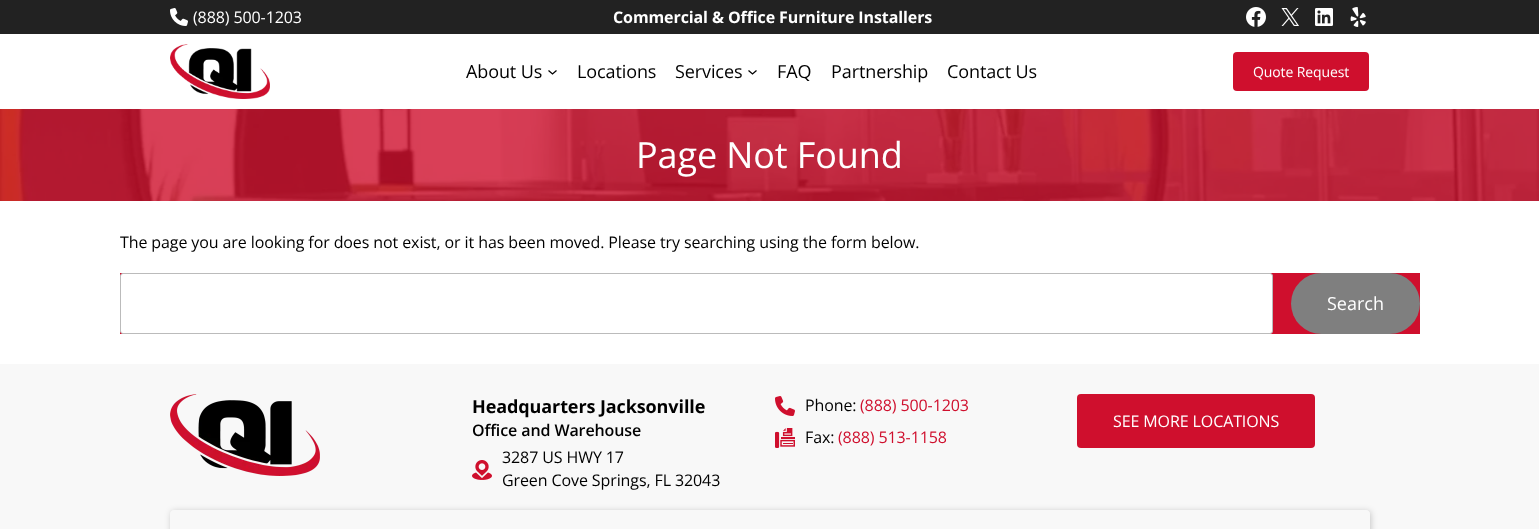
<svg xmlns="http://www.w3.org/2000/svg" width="1539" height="529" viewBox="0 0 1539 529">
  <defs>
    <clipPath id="clip1"><path d="M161 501H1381V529H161ZM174 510H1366C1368 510 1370 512 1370 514V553C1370 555 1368 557 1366 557H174C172 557 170 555 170 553V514C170 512 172 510 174 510Z" clip-rule="evenodd"/></clipPath>
  </defs>
  <rect width="100%" height="100%" fill="#fff"/>
  <path d="M0 0h1539v34H0z" fill="#222"/>
  <image x="170" y="8" width="18" height="18" href="img/1.png"/>
  <image x="1246" y="7" width="20" height="20" href="img/2.png"/>
  <image x="1281" y="8" width="18" height="18" href="img/3.png"/>
  <image x="1315" y="8" width="18" height="18" href="img/4.png"/>
  <image x="1350" y="7" width="16" height="20" href="img/5.png"/>
  <image x="170" y="44" width="100" height="55" href="img/6.png"/>
  <path d="M548.5 70.5L552.5 74L556.5 70.5" fill="none" stroke="#000" stroke-width="1.3"/>
  <path d="M748.5 70.5L752.5 74L756.5 70.5" fill="none" stroke="#000" stroke-width="1.3"/>
  <rect x="1233" y="52" width="136" height="39" rx="4" fill="#cf0f2d"/>
  <image x="0" y="109" width="1539" height="92" href="img/7.png"/>
  <path d="M120 273h1300v61H120z" fill="#cf0f2d"/>
  <rect x="120.5" y="273.5" width="1152" height="60" rx="2.5" fill="#fff" stroke="#bbb"/>
  <rect x="1291" y="273" width="129" height="61" rx="30.5" fill="#7f7f7f"/>
  <path d="M0 364h1539v165H0z" fill="#f8f8f8"/>
  <image x="170" y="394" width="150" height="82" href="img/8.png"/>
  <image x="472" y="460" width="20" height="20" href="img/9.png"/>
  <image x="775" y="396" width="20" height="20" href="img/10.png"/>
  <image x="775" y="428" width="20" height="20" href="img/11.png"/>
  <rect x="1077" y="394" width="238" height="54" rx="4" fill="#cf0f2d"/>
  <g clip-path="url(#clip1)">
    <rect x="171" y="511" width="1200" height="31" rx="4" fill="#00000033" filter="blur(3px)"/>
  </g>
  <rect x="170.5" y="510.5" width="1199" height="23" rx="3.5" fill="none" stroke="#f8f8f8"/>
  <text x="193" y="23" font-family="Open Sans" font-size="16" letter-spacing="-0.1" fill="#fff">(888) 500-1203</text>
  <text x="613" y="23" font-family="Open Sans" font-size="16" font-weight="bold" letter-spacing="-0.1" fill="#fff">Commercial &amp; Office Furniture Installers</text>
  <g font-family="Open Sans" font-size="18" letter-spacing="-0.1" fill="#000">
    <text x="466" y="78">About Us</text>
    <text x="577" y="78">Locations</text>
    <text x="675" y="78">Services</text>
    <text x="777" y="78">FAQ</text>
    <text x="831" y="78">Partnership</text>
    <text x="947" y="78">Contact Us</text>
  </g>
  <text x="1253" y="77" font-family="Open Sans" font-size="14" letter-spacing="-0.1" fill="#fff">Quote Request</text>
  <text x="636" y="168" font-family="Open Sans" font-size="36" letter-spacing="-0.1" fill="#fff">Page Not Found</text>
  <text x="120" y="248" font-family="Open Sans" font-size="16" letter-spacing="-0.1" fill="#000">The page you are looking for does not exist, or it has been moved. Please try searching using the form below.</text>
  <text x="1327" y="310" font-family="Open Sans" font-size="18" fill="#fff">Search</text>
  <text x="472" y="413" font-family="Open Sans" font-size="18" font-weight="bold" letter-spacing="-0.1" fill="#000">Headquarters Jacksonville</text>
  <text x="472" y="436" font-family="Open Sans" font-size="16" font-weight="600" letter-spacing="-0.1" fill="#000">Office and Warehouse</text>
  <g font-family="Open Sans" font-size="16" letter-spacing="-0.1" fill="#000">
    <text x="502" y="463">3287 US HWY 17</text>
    <text x="502" y="486">Green Cove Springs, FL 32043</text>
    <text x="805" y="411">Phone:</text>
  </g>
  <text x="860" y="411" font-family="Open Sans" font-size="16" letter-spacing="-0.1" fill="#cf0f2d">(888) 500-1203</text>
  <text x="805" y="443" font-family="Open Sans" font-size="16" letter-spacing="-0.1" fill="#000">Fax:</text>
  <text x="838" y="443" font-family="Open Sans" font-size="16" letter-spacing="-0.1" fill="#cf0f2d">(888) 513-1158</text>
  <text x="1113" y="427" font-family="Open Sans" font-size="16" letter-spacing="-0.1" fill="#fff">SEE MORE LOCATIONS</text>
</svg>
